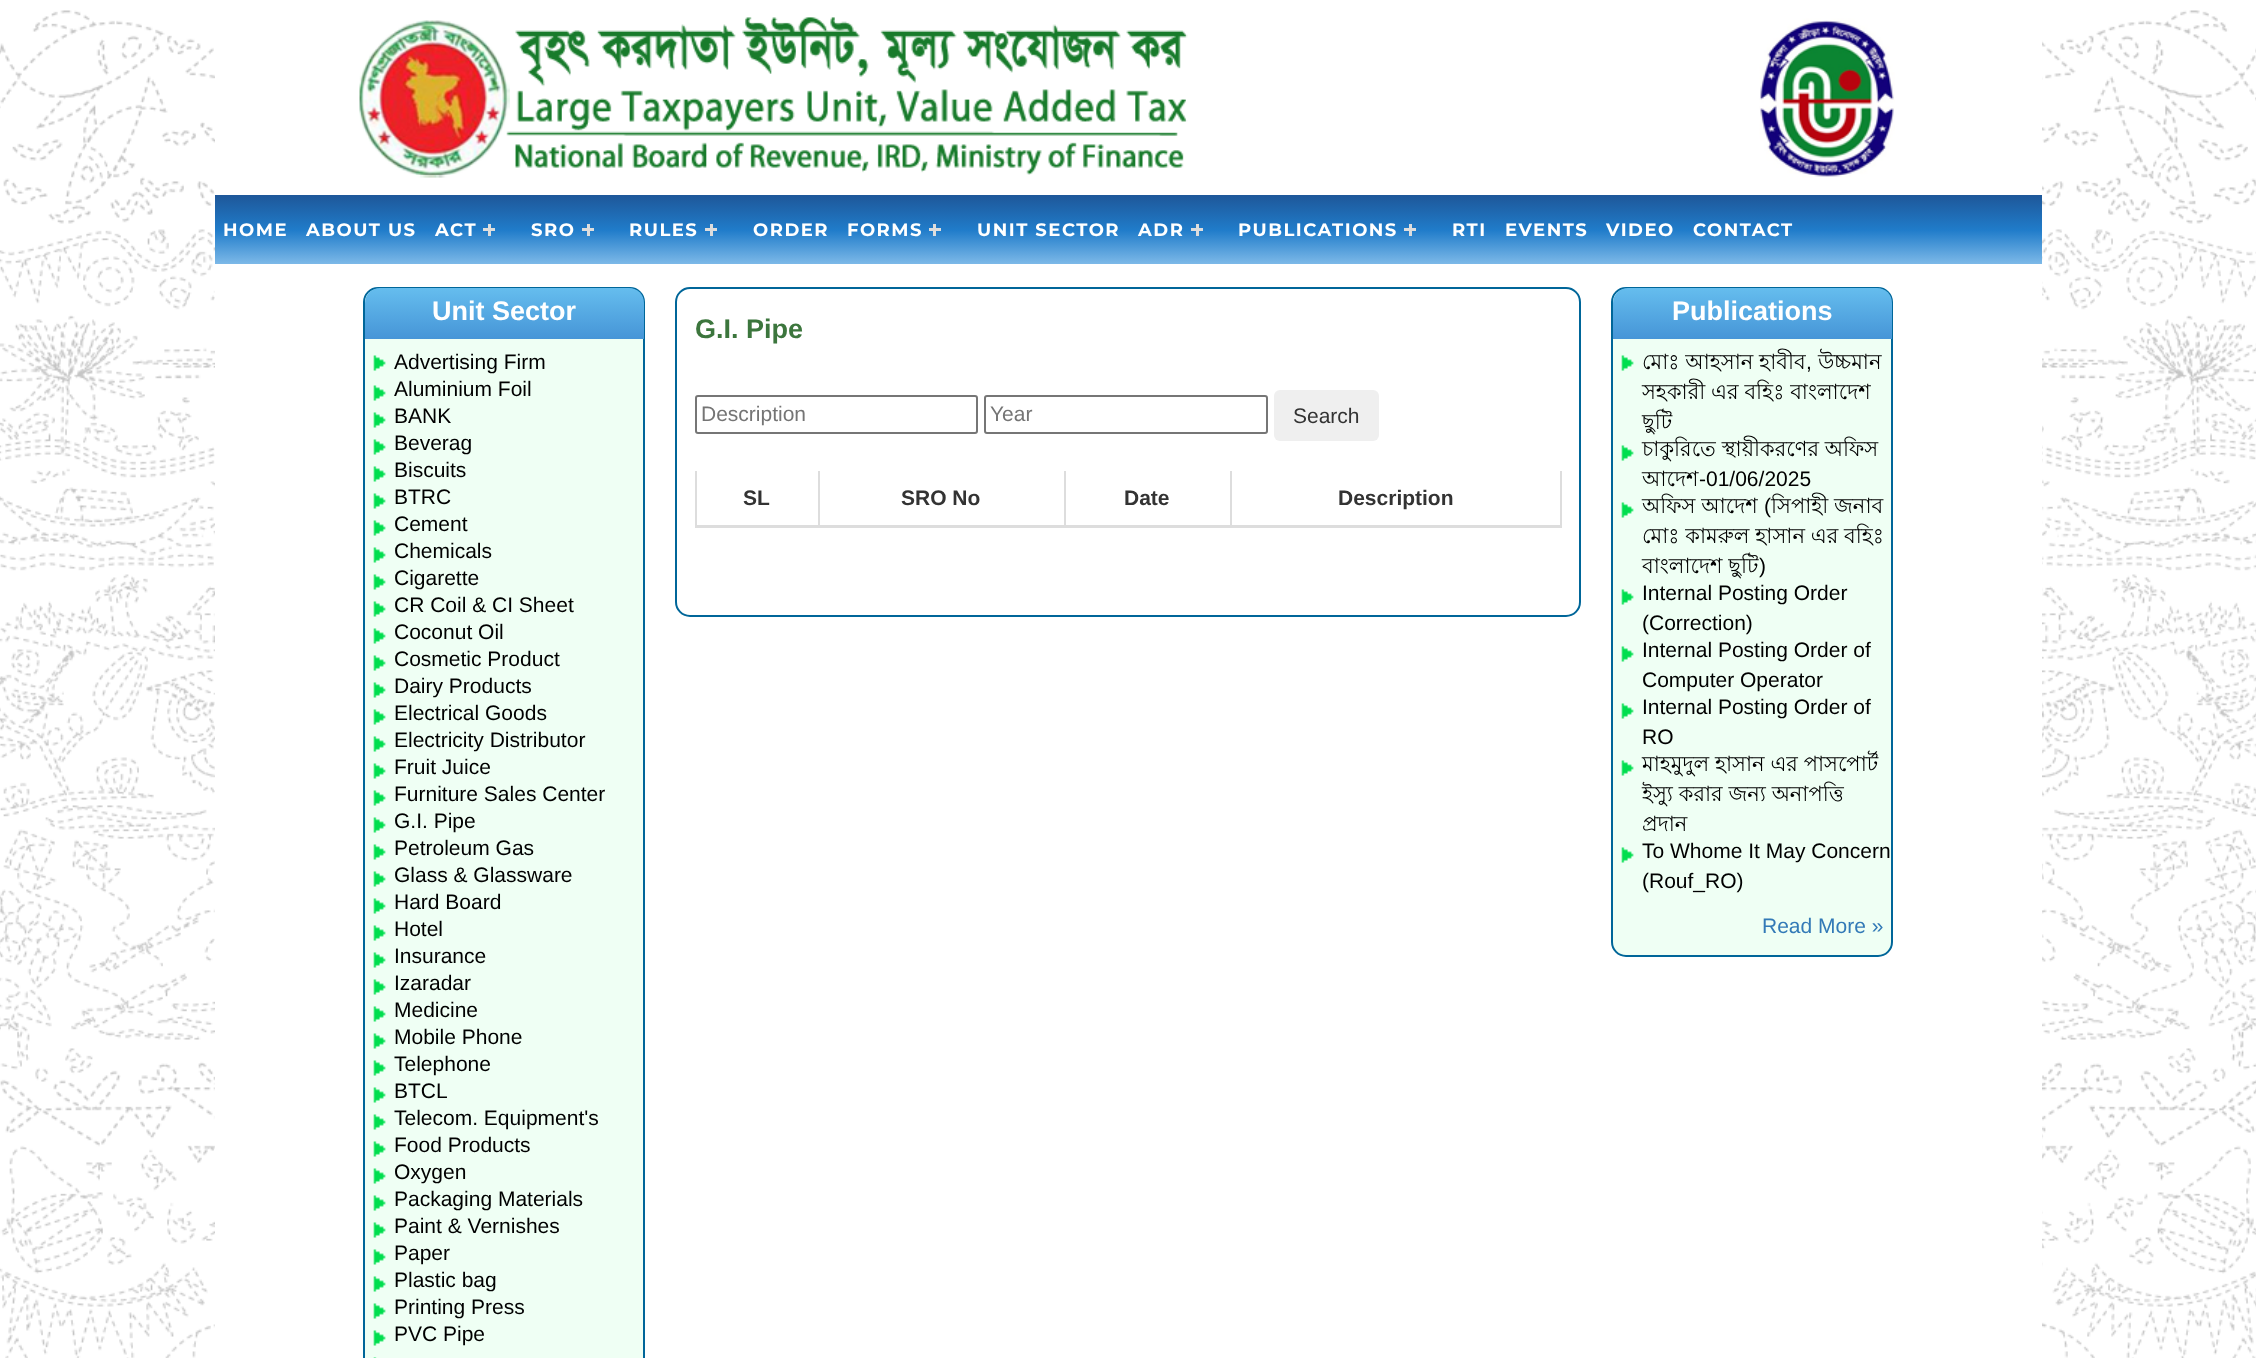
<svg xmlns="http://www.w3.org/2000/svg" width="2256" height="1358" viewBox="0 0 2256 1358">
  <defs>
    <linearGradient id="g1" gradientUnits="userSpaceOnUse" x1="1128" y1="195" x2="1128" y2="264"><stop offset="0" stop-color="#1e5799"/><stop offset="0.51" stop-color="#207cca"/><stop offset="1" stop-color="#7db9e8"/></linearGradient>
    <linearGradient id="g2" gradientUnits="userSpaceOnUse" x1="504" y1="288" x2="504" y2="339"><stop offset="0" stop-color="#65bdee"/><stop offset="1" stop-color="#4695d7"/></linearGradient>
    <linearGradient id="g3" gradientUnits="userSpaceOnUse" x1="1752" y1="288" x2="1752" y2="339"><stop offset="0" stop-color="#65bdee"/><stop offset="1" stop-color="#4695d7"/></linearGradient>
  </defs>
  <rect width="100%" height="100%" fill="#fff"/>
  <image x="0" y="0" width="2256" height="1358" href="img/1.png"/>
  <path d="M215 0h1827v195H215z" fill="#fff"/>
  <image x="359" y="17" width="1536" height="161" href="img/2.png"/>
  <path d="M215 195h1827v69H215z" fill="url(#g1)"/>
  <path d="M488 224h3v12H488z" fill="#ddd"/>
  <path d="M483 228h12v3H483z" fill="#ddd"/>
  <path d="M587 224h3v12H587z" fill="#ddd"/>
  <path d="M582 228h12v3H582z" fill="#ddd"/>
  <path d="M710 224h3v12H710z" fill="#ddd"/>
  <path d="M705 228h12v3H705z" fill="#ddd"/>
  <path d="M933 224h3v12H933z" fill="#ddd"/>
  <path d="M929 228h12v3H929z" fill="#ddd"/>
  <path d="M1196 224h3v12H1196z" fill="#ddd"/>
  <path d="M1191 228h12v3H1191z" fill="#ddd"/>
  <path d="M1409 224h3v12H1409z" fill="#ddd"/>
  <path d="M1404 228h12v3H1404z" fill="#ddd"/>
  <path d="M215 264h1827v1094H215z" fill="#fff"/>
  <rect x="364" y="288" width="280" height="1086" rx="14" fill="#effff4" stroke="#069" stroke-width="2"/>
  <path d="M380 288H629C637.5 288 644 294.5 644 303V339H365V303C365 294.5 371.5 288 380 288Z" fill="url(#g2)"/>
  <image x="373" y="355" width="13" height="16" href="img/3.png"/>
  <image x="373" y="385" width="13" height="16" href="img/3.png"/>
  <image x="373" y="412" width="13" height="16" href="img/3.png"/>
  <image x="373" y="439" width="13" height="16" href="img/3.png"/>
  <image x="373" y="466" width="13" height="16" href="img/3.png"/>
  <image x="373" y="493" width="13" height="16" href="img/3.png"/>
  <image x="373" y="520" width="13" height="16" href="img/3.png"/>
  <image x="373" y="547" width="13" height="16" href="img/3.png"/>
  <image x="373" y="574" width="13" height="16" href="img/3.png"/>
  <image x="373" y="601" width="13" height="16" href="img/3.png"/>
  <image x="373" y="628" width="13" height="16" href="img/3.png"/>
  <image x="373" y="655" width="13" height="16" href="img/3.png"/>
  <image x="373" y="682" width="13" height="16" href="img/3.png"/>
  <image x="373" y="709" width="13" height="16" href="img/3.png"/>
  <image x="373" y="736" width="13" height="16" href="img/3.png"/>
  <image x="373" y="763" width="13" height="16" href="img/3.png"/>
  <image x="373" y="790" width="13" height="16" href="img/3.png"/>
  <image x="373" y="817" width="13" height="16" href="img/3.png"/>
  <image x="373" y="844" width="13" height="16" href="img/3.png"/>
  <image x="373" y="871" width="13" height="16" href="img/3.png"/>
  <image x="373" y="898" width="13" height="16" href="img/3.png"/>
  <image x="373" y="925" width="13" height="16" href="img/3.png"/>
  <image x="373" y="952" width="13" height="16" href="img/3.png"/>
  <image x="373" y="979" width="13" height="16" href="img/3.png"/>
  <image x="373" y="1006" width="13" height="16" href="img/3.png"/>
  <image x="373" y="1033" width="13" height="16" href="img/3.png"/>
  <image x="373" y="1060" width="13" height="16" href="img/3.png"/>
  <image x="373" y="1087" width="13" height="16" href="img/3.png"/>
  <image x="373" y="1114" width="13" height="16" href="img/3.png"/>
  <image x="373" y="1141" width="13" height="16" href="img/3.png"/>
  <image x="373" y="1168" width="13" height="16" href="img/3.png"/>
  <image x="373" y="1195" width="13" height="16" href="img/3.png"/>
  <image x="373" y="1222" width="13" height="16" href="img/3.png"/>
  <image x="373" y="1249" width="13" height="16" href="img/3.png"/>
  <image x="373" y="1276" width="13" height="16" href="img/3.png"/>
  <image x="373" y="1303" width="13" height="16" href="img/3.png"/>
  <image x="373" y="1330" width="13" height="16" href="img/3.png"/>
  <image x="373" y="1357" width="4" height="1" href="img/4.png"/>
  <rect x="676" y="288" width="904" height="328" rx="14" fill="none" stroke="#069" stroke-width="2"/>
  <rect x="696" y="396" width="281" height="37" rx="2" fill="none" stroke="#767676" stroke-width="2"/>
  <rect x="985" y="396" width="282" height="37" rx="2" fill="none" stroke="#767676" stroke-width="2"/>
  <rect x="1274" y="390" width="105" height="51" rx="6" fill="#efefef"/>
  <path d="M695 471h2v56H695z" fill="#ddd"/>
  <path d="M818 471h2v56H818z" fill="#ddd"/>
  <path d="M1064 471h2v56H1064z" fill="#ddd"/>
  <path d="M1560 471h2v56H1560z" fill="#ddd"/>
  <path d="M1230 471h2v56H1230z" fill="#ddd"/>
  <path d="M695 525h867v3H695z" fill="#ddd"/>
  <rect x="1612" y="288" width="280" height="668" rx="14" fill="#effff4" stroke="#069" stroke-width="2"/>
  <path d="M1628 288H1877C1885.5 288 1892 294.5 1892 303V339H1613V303C1613 294.5 1619.5 288 1628 288Z" fill="url(#g3)"/>
  <image x="1621" y="355" width="13" height="16" href="img/3.png"/>
  <image x="1621" y="445" width="13" height="16" href="img/3.png"/>
  <image x="1621" y="502" width="13" height="16" href="img/3.png"/>
  <image x="1621" y="589" width="13" height="16" href="img/3.png"/>
  <image x="1621" y="646" width="13" height="16" href="img/3.png"/>
  <image x="1621" y="703" width="13" height="16" href="img/3.png"/>
  <image x="1621" y="760" width="13" height="16" href="img/3.png"/>
  <image x="1621" y="847" width="13" height="16" href="img/3.png"/>
  <g font-family="Montserrat" font-size="18" font-weight="bold" letter-spacing="1.5" fill="#fff">
    <text x="223" y="236">HOME</text>
    <text x="306" y="236">ABOUT US</text>
    <text x="435" y="236">ACT</text>
    <text x="531" y="236">SRO</text>
    <text x="629" y="236">RULES</text>
    <text x="753" y="236">ORDER</text>
    <text x="847" y="236">FORMS</text>
    <text x="977" y="236">UNIT SECTOR</text>
    <text x="1138" y="236">ADR</text>
    <text x="1238" y="236">PUBLICATIONS</text>
    <text x="1452" y="236">RTI</text>
    <text x="1505" y="236">EVENTS</text>
    <text x="1606" y="236">VIDEO</text>
    <text x="1693" y="236">CONTACT</text>
  </g>
  <text x="432" y="320" font-family="Liberation Sans" font-size="27" font-weight="bold" fill="#fff">Unit Sector</text>
  <g font-family="Liberation Sans" font-size="21" fill="#000">
    <text x="394" y="369">Advertising Firm</text>
    <text x="394" y="396">Aluminium Foil</text>
    <text x="394" y="423">BANK</text>
    <text x="394" y="450">Beverag</text>
    <text x="394" y="477">Biscuits</text>
    <text x="394" y="504">BTRC</text>
    <text x="394" y="531">Cement</text>
    <text x="394" y="558">Chemicals</text>
    <text x="394" y="585">Cigarette</text>
    <text x="394" y="612">CR Coil &amp; CI Sheet</text>
    <text x="394" y="639">Coconut Oil</text>
    <text x="394" y="666">Cosmetic Product</text>
    <text x="394" y="693">Dairy Products</text>
    <text x="394" y="720">Electrical Goods</text>
    <text x="394" y="747">Electricity Distributor</text>
    <text x="394" y="774">Fruit Juice</text>
    <text x="394" y="801">Furniture Sales Center</text>
    <text x="394" y="828">G.I. Pipe</text>
    <text x="394" y="855">Petroleum Gas</text>
    <text x="394" y="882">Glass &amp; Glassware</text>
    <text x="394" y="909">Hard Board</text>
    <text x="394" y="936">Hotel</text>
    <text x="394" y="963">Insurance</text>
    <text x="394" y="990">Izaradar</text>
    <text x="394" y="1017">Medicine</text>
    <text x="394" y="1044">Mobile Phone</text>
    <text x="394" y="1071">Telephone</text>
    <text x="394" y="1098">BTCL</text>
    <text x="394" y="1125">Telecom. Equipment's</text>
    <text x="394" y="1152">Food Products</text>
    <text x="394" y="1179">Oxygen</text>
    <text x="394" y="1206">Packaging Materials</text>
    <text x="394" y="1233">Paint &amp; Vernishes</text>
    <text x="394" y="1260">Paper</text>
    <text x="394" y="1287">Plastic bag</text>
    <text x="394" y="1314">Printing Press</text>
    <text x="394" y="1341">PVC Pipe</text>
  </g>
  <text x="695" y="338" font-family="Liberation Sans" font-size="27" font-weight="bold" fill="#3c763d">G.I. Pipe</text>
  <g font-family="Liberation Sans" font-size="21" fill="#757575">
    <text x="701" y="421">Description</text>
    <text x="990" y="421">Year</text>
  </g>
  <text x="1293" y="423" font-family="Liberation Sans" font-size="21" fill="#333">Search</text>
  <g font-family="Liberation Sans" font-size="21" font-weight="bold" fill="#333">
    <text x="743" y="505">SL</text>
    <text x="901" y="505">SRO No</text>
    <text x="1124" y="505">Date</text>
    <text x="1338" y="505">Description</text>
  </g>
  <text x="1672" y="320" font-family="Liberation Sans" font-size="27" font-weight="bold" fill="#fff">Publications</text>
  <text x="1642" y="369" font-family="Lohit Bengali" font-size="21" fill="#000">মোঃ আহসান হাবীব</text>
  <text x="1806" y="369" font-family="Liberation Sans" font-size="21" fill="#000">,</text>
  <g font-family="Lohit Bengali" font-size="21" fill="#000">
    <text x="1818" y="369">উচ্চমান</text>
    <text x="1642" y="399">সহকারী এর বহিঃ বাংলাদেশ</text>
    <text x="1642" y="429">ছুটি</text>
    <text x="1642" y="456">চাকুরিতে স্থায়ীকরণের অফিস</text>
    <text x="1642" y="486">আদেশ</text>
  </g>
  <text x="1699" y="486" font-family="Liberation Sans" font-size="21" fill="#000">-01/06/2025</text>
  <text x="1642" y="513" font-family="Lohit Bengali" font-size="21" fill="#000">অফিস আদেশ</text>
  <text x="1764" y="513" font-family="Liberation Sans" font-size="21" fill="#000">(</text>
  <g font-family="Lohit Bengali" font-size="21" fill="#000">
    <text x="1771" y="513">সিপাহী জনাব</text>
    <text x="1642" y="543">মোঃ কামরুল হাসান এর বহিঃ</text>
    <text x="1642" y="573">বাংলাদেশ ছুটি</text>
  </g>
  <g font-family="Liberation Sans" font-size="21" fill="#000">
    <text x="1759" y="573">)</text>
    <text x="1642" y="600">Internal Posting Order</text>
    <text x="1642" y="630">(Correction)</text>
    <text x="1642" y="657">Internal Posting Order of</text>
    <text x="1642" y="687">Computer Operator</text>
    <text x="1642" y="714">Internal Posting Order of</text>
    <text x="1642" y="744">RO</text>
  </g>
  <g font-family="Lohit Bengali" font-size="21" fill="#000">
    <text x="1642" y="771">মাহমুদুল হাসান এর পাসপোর্ট</text>
    <text x="1642" y="801">ইস্যু করার জন্য অনাপত্তি</text>
    <text x="1642" y="831">প্রদান</text>
  </g>
  <g font-family="Liberation Sans" font-size="21" fill="#000">
    <text x="1642" y="858">To Whome It May Concern</text>
    <text x="1642" y="888">(Rouf_RO)</text>
  </g>
  <text x="1762" y="933" font-family="Liberation Sans" font-size="21" fill="#337ab7">Read More »</text>
</svg>
